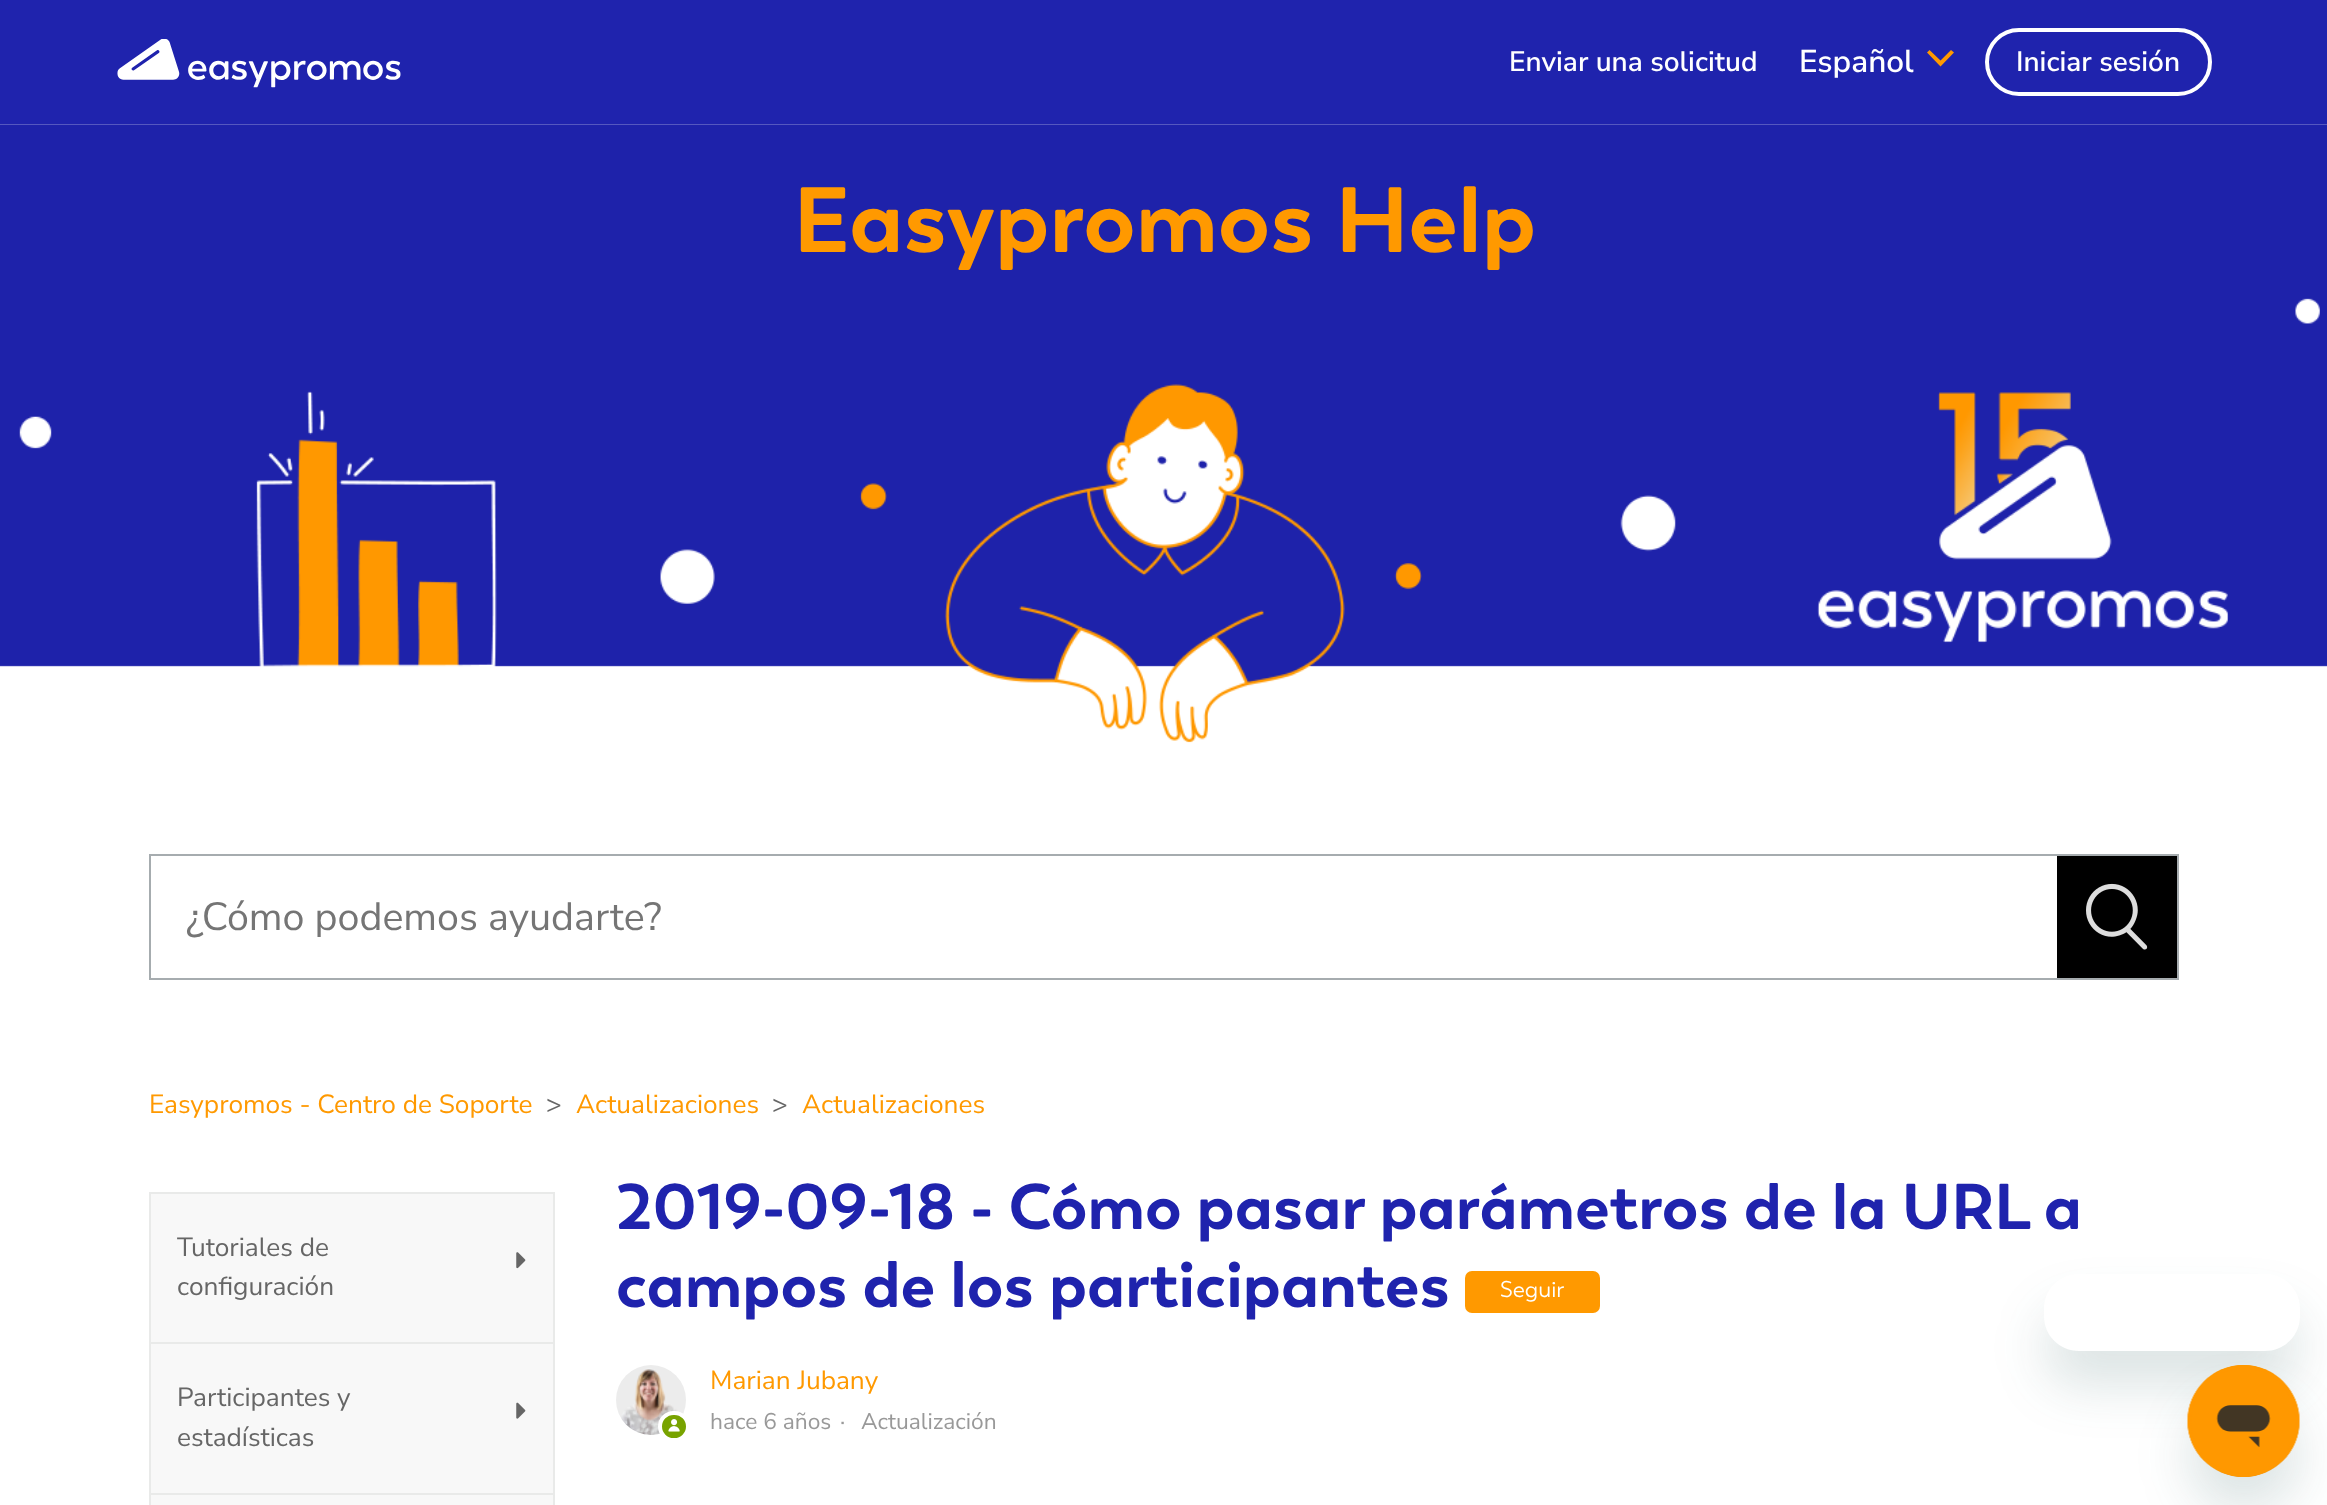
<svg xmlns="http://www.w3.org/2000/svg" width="2327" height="1505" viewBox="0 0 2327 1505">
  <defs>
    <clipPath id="clip1"><path d="M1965 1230H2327V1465H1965ZM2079 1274H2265C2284.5 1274 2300 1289.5 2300 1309V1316C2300 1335.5 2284.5 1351 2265 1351H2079C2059.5 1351 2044 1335.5 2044 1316V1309C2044 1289.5 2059.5 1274 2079 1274Z" clip-rule="evenodd"/></clipPath>
  </defs>
  <rect width="100%" height="100%" fill="#fff"/>
  <path d="M0 0h2327v124H0z" fill="#1f23ad"/>
  <image x="117" y="39" width="284" height="49" href="img/1.png"/>
  <path d="M1951 50L1940.5 60.5L1929.5 50L1927 52.5L1940.5 66.5L1954 52.5Z" fill="#f90"/>
  <rect x="1987" y="30" width="223" height="64" rx="32" fill="none" stroke="#fff" stroke-width="4"/>
  <image x="0" y="124" width="2327" height="619" href="img/2.png"/>
  <path d="M150 855h2028v124H150z" fill="none" stroke="#a6acaf" stroke-width="2"/>
  <path d="M2057 856h120v122H2057z" fill="#000"/>
  <image x="2086" y="883" width="62" height="67" href="img/3.png"/>
  <path d="M150 1193h404v150H150z" fill="#f8f8f8" stroke="#e9eae9" stroke-width="2"/>
  <image x="516" y="1252" width="10" height="17" href="img/4.png"/>
  <path d="M150 1343h404v151H150z" fill="#f8f8f8" stroke="#e9eae9" stroke-width="2"/>
  <image x="516" y="1402" width="10" height="17" href="img/5.png"/>
  <path d="M150 1494h404v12H150z" fill="#f8f8f8" stroke="#e9eae9" stroke-width="2"/>
  <rect x="1465" y="1271" width="135" height="42" rx="7" fill="#f90"/>
  <image x="616" y="1365" width="70" height="70" href="img/6.png"/>
  <rect x="660" y="1413" width="28" height="27" rx="13.5" fill="#78a300" stroke="#fff" stroke-width="4"/>
  <image x="668" y="1419" width="12" height="13" href="img/7.png"/>
  <g clip-path="url(#clip1)">
    <rect x="2044" y="1309" width="256" height="77" rx="35" fill="#17494d26" filter="blur(26px)"/>
  </g>
  <rect x="2188" y="1400" width="112" height="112" rx="56" fill="#17494d26" filter="blur(26px)"/>
  <image x="2187" y="1365" width="113" height="112" href="img/8.png"/>
  <text x="1509" y="71" font-family="Nunito Sans" font-size="28" font-weight="600" fill="#fff">Enviar una solicitud</text>
  <text x="1799" y="72" font-family="Nunito Sans" font-size="31.5" font-weight="600" fill="#fff">Español</text>
  <text x="2016" y="71" font-family="Nunito Sans" font-size="28" font-weight="600" fill="#fff">Iniciar sesión</text>
  <text x="793" y="252" font-family="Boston" font-size="92" font-weight="bold" fill="#f90">Easypromos Help</text>
  <text x="186" y="930" font-family="Nunito Sans" font-size="39.4" fill="#757575">¿Cómo podemos ayudarte?</text>
  <text x="149" y="1113" font-family="Nunito Sans" font-size="26.25" fill="#f90">Easypromos - Centro de Soporte</text>
  <text x="546" y="1113" font-family="Nunito Sans" font-size="26.25" fill="#666">&gt;</text>
  <text x="576" y="1113" font-family="Nunito Sans" font-size="26.25" fill="#f90">Actualizaciones</text>
  <text x="772" y="1113" font-family="Nunito Sans" font-size="26.25" fill="#666">&gt;</text>
  <text x="802" y="1113" font-family="Nunito Sans" font-size="26.25" fill="#f90">Actualizaciones</text>
  <g font-family="Nunito Sans" font-size="26.25" fill="#666">
    <text x="177" y="1256">Tutoriales de</text>
    <text x="177" y="1295">configuración</text>
    <text x="177" y="1406">Participantes y</text>
    <text x="177" y="1446">estadísticas</text>
  </g>
  <g font-family="Boston" font-size="64.4" font-weight="bold" fill="#1f23ad">
    <text x="616" y="1229">2019-09-18 - Cómo pasar parámetros de la URL a</text>
    <text x="616" y="1307">campos de los participantes</text>
  </g>
  <text x="1500" y="1297" font-family="Boston" font-size="22.75" fill="#fff">Seguir</text>
  <text x="710" y="1389" font-family="Nunito Sans" font-size="26.25" fill="#f90">Marian Jubany</text>
  <g font-family="Nunito Sans" font-size="22.75" fill="#999">
    <text x="710" y="1429">hace 6 años</text>
    <text x="840" y="1429">·</text>
    <text x="861" y="1429">Actualización</text>
  </g>
</svg>
